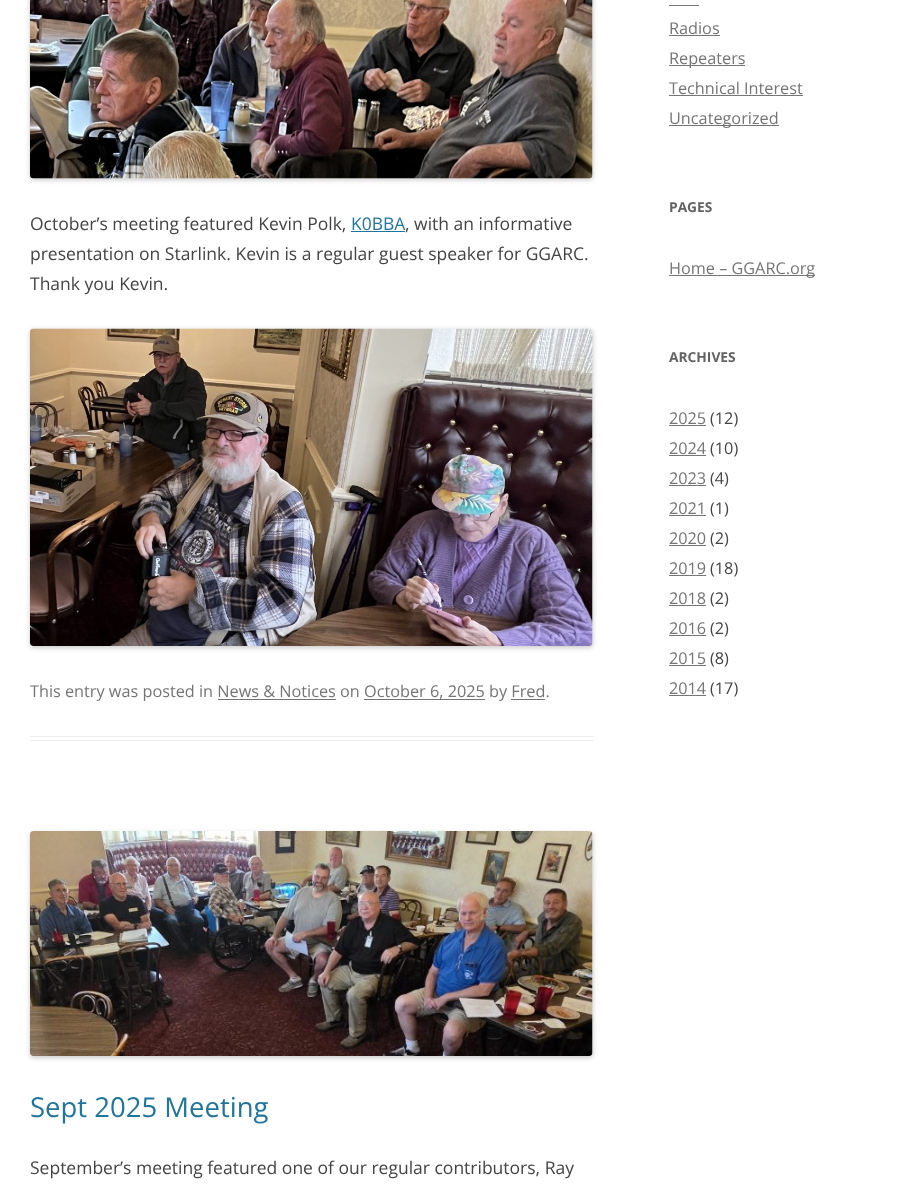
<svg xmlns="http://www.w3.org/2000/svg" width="923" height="1188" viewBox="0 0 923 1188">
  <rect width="100%" height="100%" fill="#fff"/>
  <path d="M30 736h563v1H30z" fill="#ededed"/>
  <path d="M30 740h563v1H30z" fill="#ededed"/>
  <rect x="30" y="-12" width="563" height="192" rx="4" fill="#00000033" filter="blur(2.5px)"/>
  <image x="30" y="0" width="563" height="179" href="img/1.png"/>
  <path d="M351 231h54v1H351z" fill="#21759b"/>
  <rect x="30" y="330" width="563" height="318" rx="4" fill="#00000033" filter="blur(2.5px)"/>
  <image x="30" y="328" width="563" height="318" href="img/2.png"/>
  <path d="M364 699h121v1H364z" fill="#757575"/>
  <path d="M218 699h118v1H218z" fill="#757575"/>
  <path d="M511 699h34v1H511z" fill="#757575"/>
  <rect x="30" y="833" width="563" height="225" rx="4" fill="#00000033" filter="blur(2.5px)"/>
  <image x="30" y="831" width="563" height="225" href="img/3.png"/>
  <path d="M669 5h30v1H669z" fill="#757575"/>
  <path d="M669 35h51v1H669z" fill="#757575"/>
  <path d="M669 65h76v1H669z" fill="#757575"/>
  <path d="M669 95h134v1H669z" fill="#757575"/>
  <path d="M669 125h110v1H669z" fill="#757575"/>
  <path d="M669 275h146v1H669z" fill="#757575"/>
  <path d="M669 425h37v1H669z" fill="#757575"/>
  <path d="M669 455h37v1H669z" fill="#757575"/>
  <path d="M669 485h37v1H669z" fill="#757575"/>
  <path d="M669 515h37v1H669z" fill="#757575"/>
  <path d="M669 545h37v1H669z" fill="#757575"/>
  <path d="M669 575h37v1H669z" fill="#757575"/>
  <path d="M669 605h37v1H669z" fill="#757575"/>
  <path d="M669 635h37v1H669z" fill="#757575"/>
  <path d="M669 665h37v1H669z" fill="#757575"/>
  <path d="M669 695h37v1H669z" fill="#757575"/>
  <text x="30" y="230" font-family="Open Sans" font-size="17.5" fill="#444">October’s meeting featured Kevin Polk,</text>
  <text x="351" y="230" font-family="Open Sans" font-size="17.5" fill="#21759b">K0BBA</text>
  <g font-family="Open Sans" font-size="17.5" fill="#444">
    <text x="405" y="230">, with an informative</text>
    <text x="30" y="260">presentation on Starlink. Kevin is a regular guest speaker for GGARC.</text>
    <text x="30" y="290">Thank you Kevin.</text>
  </g>
  <g font-family="Open Sans" font-size="16.25" fill="#757575">
    <text x="30" y="697">This entry was posted in News &amp; Notices on</text>
    <text x="364" y="697">October 6, 2025 by Fred.</text>
  </g>
  <text x="30" y="1117" font-family="Open Sans" font-size="27.5" fill="#21759b">Sept 2025 Meeting</text>
  <text x="30" y="1174" font-family="Open Sans" font-size="17.5" fill="#444">September’s meeting featured one of our regular contributors, Ray</text>
  <g font-family="Open Sans" font-size="16.25" fill="#757575">
    <text x="669" y="34">Radios</text>
    <text x="669" y="64">Repeaters</text>
    <text x="669" y="94">Technical Interest</text>
    <text x="669" y="124">Uncategorized</text>
  </g>
  <text x="669" y="212" font-family="Open Sans" font-size="13.75" font-weight="bold" fill="#636363">PAGES</text>
  <text x="669" y="274" font-family="Open Sans" font-size="16.25" fill="#757575">Home – GGARC.org</text>
  <text x="669" y="362" font-family="Open Sans" font-size="13.75" font-weight="bold" fill="#636363">ARCHIVES</text>
  <text x="669" y="424" font-family="Open Sans" font-size="16.25" fill="#757575">2025</text>
  <text x="710" y="424" font-family="Open Sans" font-size="16.25" fill="#444">(12)</text>
  <text x="669" y="454" font-family="Open Sans" font-size="16.25" fill="#757575">2024</text>
  <text x="710" y="454" font-family="Open Sans" font-size="16.25" fill="#444">(10)</text>
  <text x="669" y="484" font-family="Open Sans" font-size="16.25" fill="#757575">2023</text>
  <text x="710" y="484" font-family="Open Sans" font-size="16.25" fill="#444">(4)</text>
  <text x="669" y="514" font-family="Open Sans" font-size="16.25" fill="#757575">2021</text>
  <text x="710" y="514" font-family="Open Sans" font-size="16.25" fill="#444">(1)</text>
  <text x="669" y="544" font-family="Open Sans" font-size="16.25" fill="#757575">2020</text>
  <text x="710" y="544" font-family="Open Sans" font-size="16.25" fill="#444">(2)</text>
  <text x="669" y="574" font-family="Open Sans" font-size="16.25" fill="#757575">2019</text>
  <text x="710" y="574" font-family="Open Sans" font-size="16.25" fill="#444">(18)</text>
  <text x="669" y="604" font-family="Open Sans" font-size="16.25" fill="#757575">2018</text>
  <text x="710" y="604" font-family="Open Sans" font-size="16.25" fill="#444">(2)</text>
  <text x="669" y="634" font-family="Open Sans" font-size="16.25" fill="#757575">2016</text>
  <text x="710" y="634" font-family="Open Sans" font-size="16.25" fill="#444">(2)</text>
  <text x="669" y="664" font-family="Open Sans" font-size="16.25" fill="#757575">2015</text>
  <text x="710" y="664" font-family="Open Sans" font-size="16.25" fill="#444">(8)</text>
  <text x="669" y="694" font-family="Open Sans" font-size="16.25" fill="#757575">2014</text>
  <text x="710" y="694" font-family="Open Sans" font-size="16.25" fill="#444">(17)</text>
</svg>
